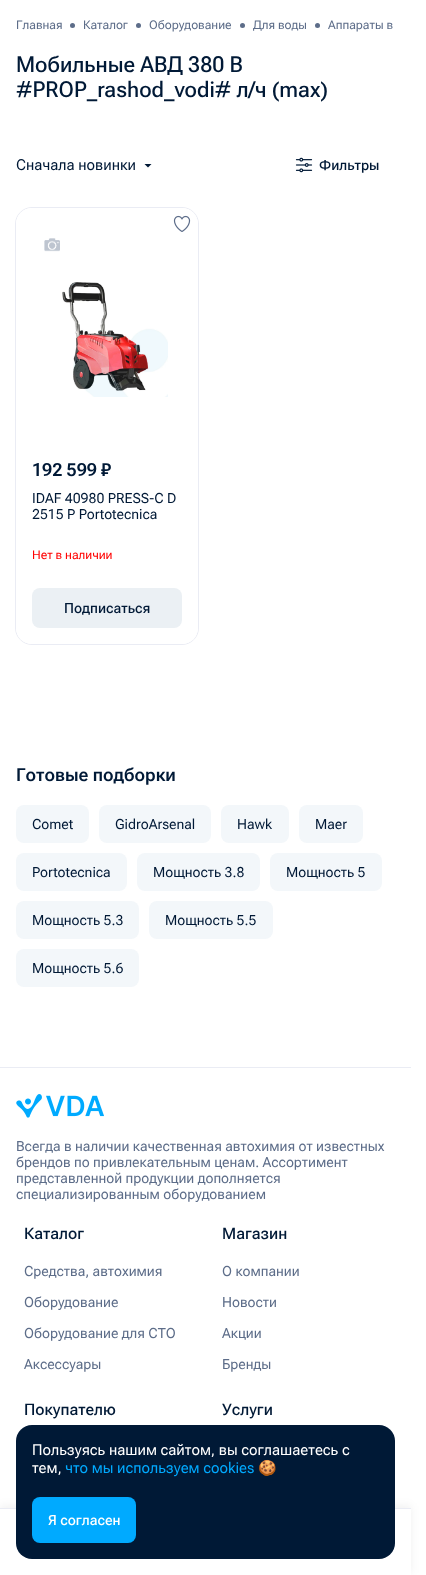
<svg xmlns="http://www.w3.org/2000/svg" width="426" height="1575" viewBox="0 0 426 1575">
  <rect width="100%" height="100%" fill="#fff"/>
  <circle cx="72.5" cy="25.5" r="2.5" fill="#5d6d89"/>
  <circle cx="138.5" cy="25.5" r="2.5" fill="#5d6d89"/>
  <circle cx="242.5" cy="25.5" r="2.5" fill="#5d6d89"/>
  <circle cx="317.5" cy="25.5" r="2.5" fill="#5d6d89"/>
  <path d="M148 167.5L144.5 164H151.5Z" fill="#001936"/>
  <image x="295" y="157" width="18" height="16" href="img/1.png"/>
  <rect x="15.5" y="207.5" width="183" height="437" rx="16.5" fill="none" stroke="#eaecf4"/>
  <path d="M32 208H182C191 208 198 215 198 224V578H16V224C16 215 23 208 32 208Z" fill="#fff"/>
  <image x="173" y="215" width="18" height="17" href="img/2.png"/>
  <image x="44" y="238" width="16" height="14" href="img/3.png"/>
  <image x="62" y="282" width="106" height="115" href="img/4.png"/>
  <path d="M16 588H198V628C198 637 191 644 182 644H32C23 644 16 637 16 628Z" fill="#fff"/>
  <rect x="32" y="588" width="150" height="40" rx="8" fill="#ebf0f4"/>
  <rect x="16" y="805" width="73" height="38" rx="8" fill="#f3f7fa"/>
  <rect x="99" y="805" width="112" height="38" rx="8" fill="#f3f7fa"/>
  <rect x="221" y="805" width="68" height="38" rx="8" fill="#f3f7fa"/>
  <rect x="299" y="805" width="64" height="38" rx="8" fill="#f3f7fa"/>
  <rect x="16" y="853" width="111" height="38" rx="8" fill="#f3f7fa"/>
  <rect x="137" y="853" width="123" height="38" rx="8" fill="#f3f7fa"/>
  <rect x="270" y="853" width="112" height="38" rx="8" fill="#f3f7fa"/>
  <rect x="16" y="901" width="123" height="38" rx="8" fill="#f3f7fa"/>
  <rect x="149" y="901" width="124" height="38" rx="8" fill="#f3f7fa"/>
  <rect x="16" y="949" width="123" height="38" rx="8" fill="#f3f7fa"/>
  <path d="M0 1067h411v1H0z" fill="#eaecf4"/>
  <image x="16" y="1094" width="88" height="24" href="img/5.png"/>
  <path d="M0 1506h411v67H0z" fill="#0000000f" filter="blur(5px)"/>
  <path d="M0 1508h411v1H0z" fill="#eaecf4"/>
  <path d="M0 1509h411v66H0z" fill="#fff"/>
  <rect x="16" y="1425" width="379" height="134" rx="16" fill="#001936"/>
  <rect x="32" y="1497" width="104" height="46" rx="8" fill="#0af"/>
  <g font-family="'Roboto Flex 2'" font-size="12" fill="#5d6d89">
    <text x="16" y="29">Главная</text>
    <text x="83" y="29">Каталог</text>
    <text x="149" y="29">Оборудование</text>
    <text x="253" y="29">Для воды</text>
    <text x="328" y="29">Аппараты в</text>
  </g>
  <g font-family="'Roboto Flex 2'" font-size="22" font-weight="500" fill="#001936">
    <text x="16" y="72">Мобильные АВД 380 В</text>
    <text x="16" y="97">#PROP_rashod_vodi# л/ч (max)</text>
  </g>
  <text x="16" y="170" font-family="'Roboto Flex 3'" font-size="15" fill="#001936">Сначала новинки</text>
  <text x="319" y="170" font-family="'Roboto Flex 3'" font-size="14" font-weight="500" fill="#001936">Фильтры</text>
  <text x="32" y="476" font-family="Roboto Flex" font-size="18" font-weight="600" fill="#001936">192 599 ₽</text>
  <g font-family="Roboto Flex" font-size="14" fill="#001936">
    <text x="32" y="503">IDAF 40980 PRESS-C D</text>
    <text x="32" y="519">2515 P Portotecnica</text>
  </g>
  <text x="32" y="559" font-family="'Roboto Flex 2'" font-size="12" fill="#f00">Нет в наличии</text>
  <text x="64" y="613" font-family="'Roboto Flex 3'" font-size="14" font-weight="500" fill="#001936">Подписаться</text>
  <text x="16" y="781" font-family="Roboto Flex" font-size="18" font-weight="600" fill="#001936">Готовые подборки</text>
  <g font-family="Roboto Flex" font-size="14" fill="#001936">
    <text x="32" y="829">Comet</text>
    <text x="115" y="829">GidroArsenal</text>
    <text x="237" y="829">Hawk</text>
    <text x="315" y="829">Maer</text>
    <text x="32" y="877">Portotecnica</text>
    <text x="153" y="877">Мощность 3.8</text>
    <text x="286" y="877">Мощность 5</text>
    <text x="32" y="925">Мощность 5.3</text>
    <text x="165" y="925">Мощность 5.5</text>
    <text x="32" y="973">Мощность 5.6</text>
  </g>
  <g font-family="Roboto Flex" font-size="14" fill="#5d6d89">
    <text x="16" y="1151">Всегда в наличии качественная автохимия от известных</text>
    <text x="16" y="1167">брендов по привлекательным ценам. Ассортимент</text>
    <text x="16" y="1183">представленной продукции дополняется</text>
    <text x="16" y="1199">специализированным оборудованием</text>
  </g>
  <text x="24" y="1239" font-family="Roboto Flex" font-size="16" font-weight="500" fill="#001936">Каталог</text>
  <g font-family="Roboto Flex" font-size="14" fill="#5d6d89">
    <text x="24" y="1276">Средства, автохимия</text>
    <text x="24" y="1307">Оборудование</text>
    <text x="24" y="1338">Оборудование для СТО</text>
    <text x="24" y="1369">Аксессуары</text>
  </g>
  <text x="222" y="1239" font-family="Roboto Flex" font-size="16" font-weight="500" fill="#001936">Магазин</text>
  <g font-family="Roboto Flex" font-size="14" fill="#5d6d89">
    <text x="222" y="1276">О компании</text>
    <text x="222" y="1307">Новости</text>
    <text x="222" y="1338">Акции</text>
    <text x="222" y="1369">Бренды</text>
  </g>
  <g font-family="Roboto Flex" font-size="16" font-weight="500" fill="#001936">
    <text x="24" y="1415">Покупателю</text>
    <text x="222" y="1415">Услуги</text>
  </g>
  <g font-family="'Roboto Flex 3'" font-size="15" fill="#fff">
    <text x="32" y="1455">Пользуясь нашим сайтом, вы соглашаетесь с</text>
    <text x="32" y="1473">тем,</text>
  </g>
  <text x="65" y="1473" font-family="'Roboto Flex 3'" font-size="15" fill="#0af">что мы используем cookies</text>
  <text x="258" y="1473" font-family="Noto Color Emoji" font-size="15" fill="#fff">🍪</text>
  <text x="48" y="1525" font-family="'Roboto Flex 3'" font-size="14" font-weight="500" fill="#fff">Я согласен</text>
</svg>
